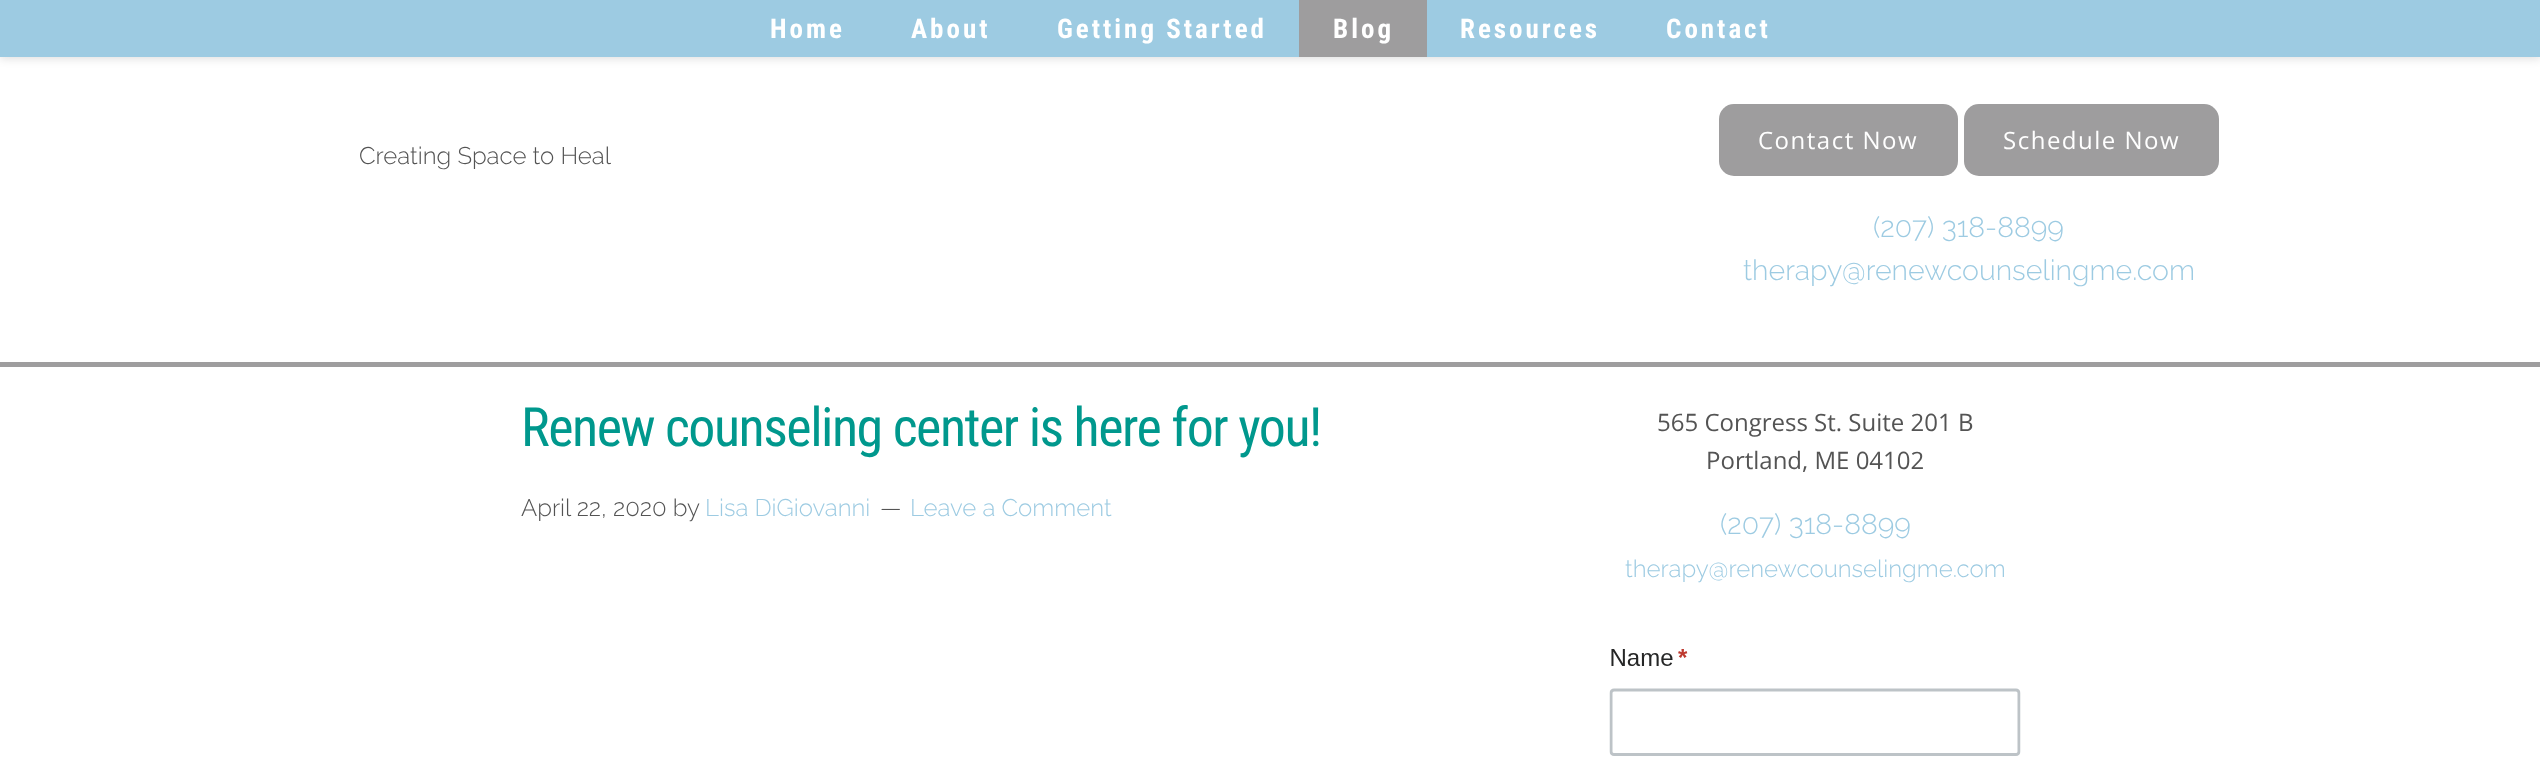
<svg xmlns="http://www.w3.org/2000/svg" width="2540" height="772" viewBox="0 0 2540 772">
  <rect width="100%" height="100%" fill="#fff"/>
  <path d="M0 2h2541v57H0z" fill="#0000001f" filter="blur(4px)"/>
  <path d="M0 0h2540v57H0z" fill="#9dcbe2"/>
  <path d="M1299 0h128v57H1299z" fill="#9e9d9e"/>
  <path d="M0 362h2540v5H0z" fill="#9e9d9e"/>
  <rect x="1719" y="104" width="239" height="72" rx="15" fill="#9e9d9e"/>
  <rect x="1964" y="104" width="255" height="72" rx="15" fill="#9e9d9e"/>
  <image x="1609" y="649" width="412" height="107" href="img/1.png"/>
  <g font-family="Roboto Condensed" font-size="27" font-weight="bold" letter-spacing="3" fill="#fff">
    <text x="770" y="38">Home</text>
    <text x="911" y="38">About</text>
    <text x="1057" y="38">Getting Started</text>
    <text x="1333" y="38">Blog</text>
    <text x="1460" y="38">Resources</text>
    <text x="1666" y="38">Contact</text>
  </g>
  <text x="359" y="164" font-family="Raleway" font-size="24" font-weight="300" fill="#545454">Creating Space to Heal</text>
  <g font-family="Open Sans" font-size="24" letter-spacing="1.5" fill="#fff">
    <text x="1758" y="149">Contact Now</text>
    <text x="2003" y="149">Schedule Now</text>
  </g>
  <g font-family="Raleway" font-size="28.5" font-weight="300" fill="#9dcbe2">
    <text x="1873" y="237">(207) 318-8899</text>
    <text x="1743" y="280">therapy@renewcounselingme.com</text>
  </g>
  <text x="521" y="446" font-family="Roboto Condensed" font-size="54" letter-spacing="-1.5" fill="#00988d">Renew counseling center is here for you!</text>
  <text x="521" y="516" font-family="Raleway" font-size="24" font-weight="300" fill="#545454">April 22, 2020 by</text>
  <text x="705" y="516" font-family="Raleway" font-size="24" font-weight="300" fill="#9dcbe2">Lisa DiGiovanni</text>
  <text x="880" y="516" font-family="Raleway" font-size="24" font-weight="300" fill="#545454">—</text>
  <text x="910" y="516" font-family="Raleway" font-size="24" font-weight="300" fill="#9dcbe2">Leave a Comment</text>
  <g font-family="Open Sans" font-size="24" fill="#545454">
    <text x="1657" y="431">565 Congress St. Suite 201 B</text>
    <text x="1706" y="469">Portland, ME 04102</text>
  </g>
  <text x="1720" y="534" font-family="Raleway" font-size="28.5" font-weight="300" fill="#9dcbe2">(207) 318-8899</text>
  <text x="1625" y="577" font-family="Raleway" font-size="24" font-weight="300" fill="#9dcbe2">therapy@renewcounselingme.com</text>
</svg>
